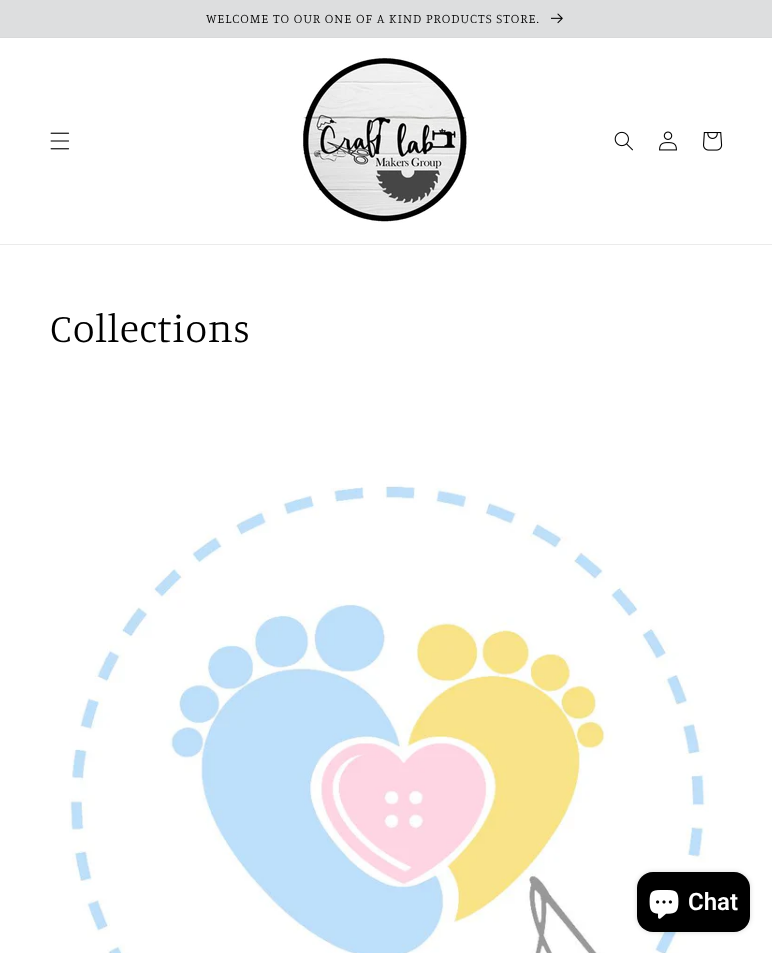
<svg xmlns="http://www.w3.org/2000/svg" width="772" height="953" viewBox="0 0 772 953">
  <rect width="100%" height="100%" fill="#fff"/>
  <path d="M0 37h772v1H0z" fill="#d8d9da"/>
  <path d="M0 0h772v37H0z" fill="#dddedf"/>
  <image x="551" y="13" width="12" height="11" href="img/1.png"/>
  <path d="M0 244h772v1H0z" fill="#ebebeb"/>
  <image x="50" y="132" width="20" height="18" href="img/2.png"/>
  <image x="301" y="56" width="168" height="167" href="img/3.png"/>
  <image x="614" y="131" width="19" height="20" href="img/4.png"/>
  <image x="659" y="131" width="18" height="20" href="img/5.png"/>
  <image x="703" y="132" width="20" height="19" href="img/6.png"/>
  <image x="69" y="484" width="640" height="469" href="img/7.png"/>
  <rect x="637" y="872" width="113" height="60" rx="16" fill="#00000026" filter="blur(2.5px)"/>
  <rect x="637" y="872" width="113" height="60" rx="16" fill="#000"/>
  <image x="649" y="890" width="30" height="29" href="img/8.png"/>
  <text x="206" y="23" font-family="Manuale" font-size="13" font-weight="300" letter-spacing="1" fill="#000">WELCOME TO OUR ONE OF A KIND PRODUCTS STORE.</text>
  <text x="50" y="342" font-family="Manuale" font-size="40" font-weight="300" letter-spacing="0.6" fill="#000">Collections</text>
  <text x="688" y="910" font-family="Roboto" font-size="24" font-weight="600" fill="#fff">Chat</text>
</svg>
